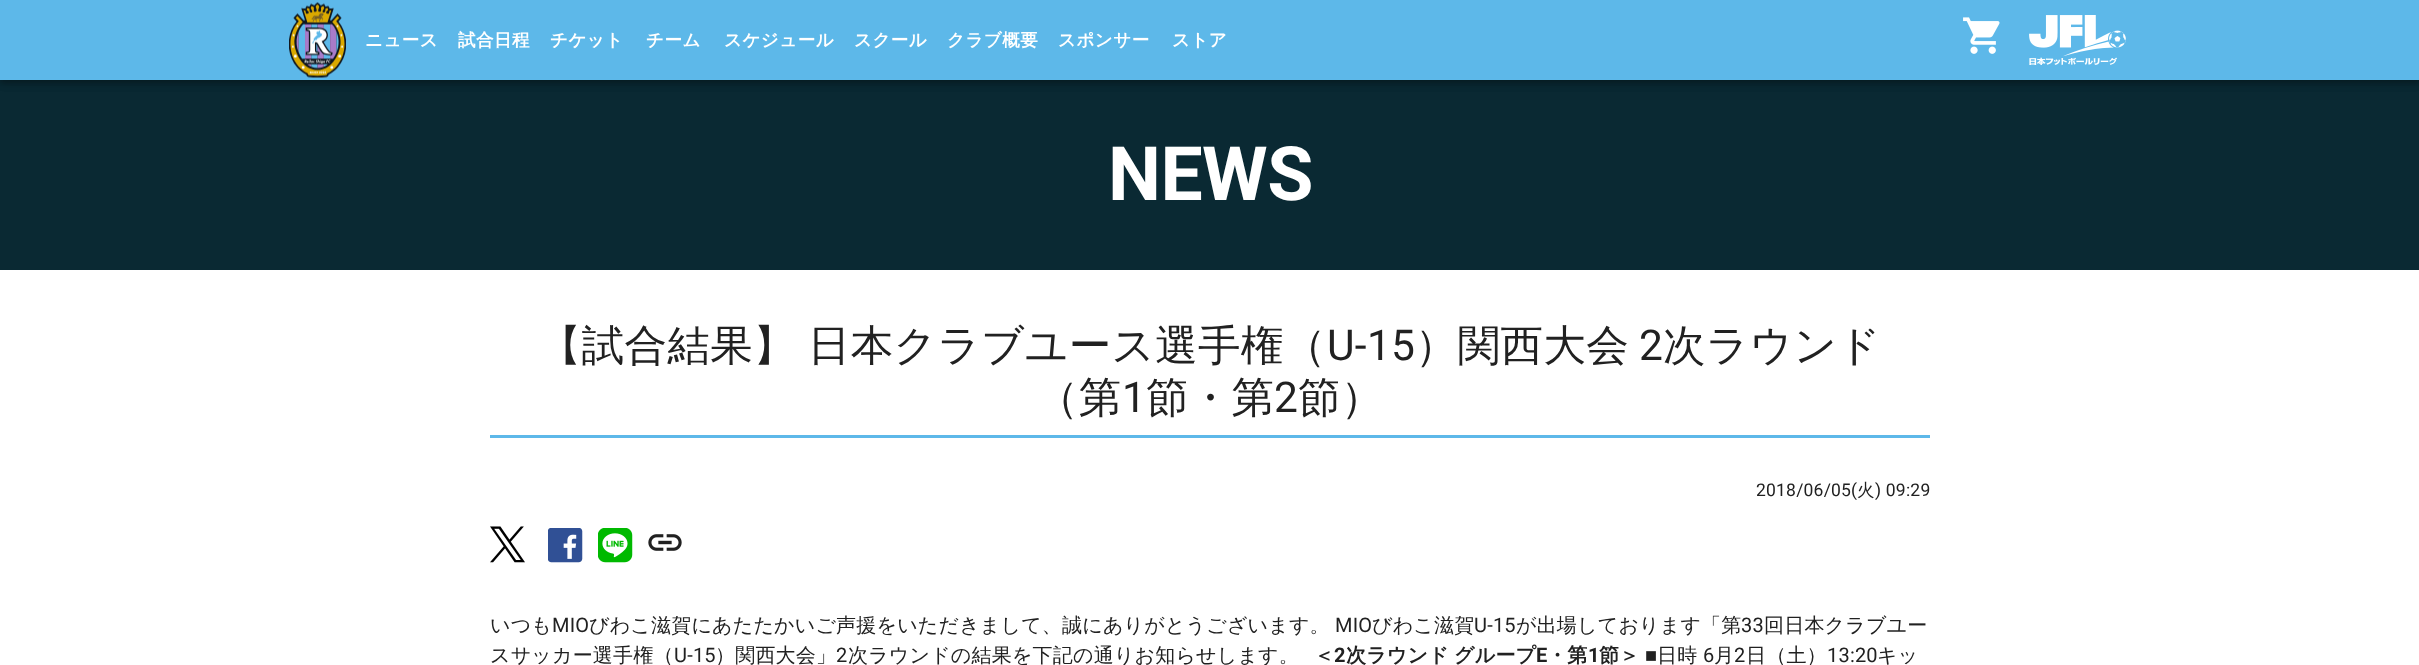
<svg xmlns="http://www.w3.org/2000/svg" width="2419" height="665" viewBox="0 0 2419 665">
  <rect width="100%" height="100%" fill="#fff"/>
  <path d="M0 80h2419v190H0z" fill="#0a2933"/>
  <path d="M0 1h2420v80H0z" fill="#0000001f" filter="blur(6px)"/>
  <path d="M0 5h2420v80H0z" fill="#00000024" filter="blur(3px)"/>
  <path d="M1 4h2418v77H1z" fill="#00000033" filter="blur(2.5px)"/>
  <path d="M0 0h2419v80H0z" fill="#5db8e9"/>
  <image x="289" y="2" width="57" height="76" href="img/1.png"/>
  <image x="1963" y="17" width="37" height="37" href="img/2.png"/>
  <image x="2029" y="15" width="97" height="50" href="img/3.png"/>
  <path d="M490 435h1440v3H490z" fill="#5db8e9"/>
  <image x="490" y="526" width="35" height="37" href="img/4.png"/>
  <image x="548" y="528" width="35" height="35" href="img/5.png"/>
  <image x="598" y="528" width="35" height="35" href="img/6.png"/>
  <image x="648" y="534" width="34" height="17" href="img/7.png"/>
  <g font-family="WenQuanYi Zen Hei" font-size="17.5" font-weight="bold" letter-spacing="0.5" fill="#fff">
    <text x="365" y="46">ニュース</text>
    <text x="458" y="46">試合日程</text>
    <text x="550" y="46">チケット</text>
    <text x="646" y="46">チーム</text>
    <text x="724" y="46">スケジュール</text>
    <text x="854" y="46">スクール</text>
    <text x="947" y="46">クラブ概要</text>
    <text x="1058" y="46">スポンサー</text>
    <text x="1172" y="46">ストア</text>
  </g>
  <text x="1108" y="200" font-family="Roboto" font-size="75" font-weight="bold" letter-spacing="-0.5" fill="#fff">NEWS</text>
  <text x="539" y="360" word-spacing="-1" font-family="WenQuanYi Zen Hei" font-size="42.5" font-weight="500" letter-spacing="0.3" fill="#212121">【試合結果】 日本クラブユース選手権（</text>
  <text x="1327" y="360" font-family="Roboto" font-size="42.5" letter-spacing="0.3" fill="#212121">U-15</text>
  <text x="1415" y="360" font-family="WenQuanYi Zen Hei" font-size="42.5" font-weight="500" letter-spacing="0.3" fill="#212121">）関西大会</text>
  <text x="1639" y="360" font-family="Roboto" font-size="42.5" letter-spacing="0.3" fill="#212121">2</text>
  <g font-family="WenQuanYi Zen Hei" font-size="42.5" font-weight="500" letter-spacing="0.3" fill="#212121">
    <text x="1663" y="360">次ラウンド</text>
    <text x="1036" y="412">（第</text>
  </g>
  <text x="1122" y="412" font-family="Roboto" font-size="42.5" letter-spacing="0.3" fill="#212121">1</text>
  <text x="1146" y="412" font-family="WenQuanYi Zen Hei" font-size="42.5" font-weight="500" letter-spacing="0.3" fill="#212121">節・第</text>
  <text x="1274" y="412" font-family="Roboto" font-size="42.5" letter-spacing="0.3" fill="#212121">2</text>
  <text x="1298" y="412" font-family="WenQuanYi Zen Hei" font-size="42.5" font-weight="500" letter-spacing="0.3" fill="#212121">節）</text>
  <text x="1756" y="496" font-family="Roboto" font-size="17.5" letter-spacing="0.2" fill="#212121">2018/06/05(</text>
  <text x="1857" y="496" font-family="WenQuanYi Zen Hei" font-size="17.5" font-weight="500" letter-spacing="0.2" fill="#212121">火</text>
  <text x="1875" y="496" font-family="Roboto" font-size="17.5" letter-spacing="0.2" fill="#212121">) 09:29</text>
  <text x="490" y="632" font-family="WenQuanYi Zen Hei" font-size="20" font-weight="500" letter-spacing="0.2" fill="#212121">いつも</text>
  <text x="552" y="632" font-family="Roboto" font-size="20" letter-spacing="0.2" fill="#212121">MIO</text>
  <text x="589" y="632" font-family="WenQuanYi Zen Hei" font-size="20" font-weight="500" letter-spacing="0.2" fill="#212121">びわこ滋賀にあたたかいご声援をいただきまして、誠にありがとうございます。</text>
  <text x="1335" y="632" font-family="Roboto" font-size="20" letter-spacing="0.2" fill="#212121">MIO</text>
  <text x="1372" y="632" font-family="WenQuanYi Zen Hei" font-size="20" font-weight="500" letter-spacing="0.2" fill="#212121">びわこ滋賀</text>
  <text x="1474" y="632" font-family="Roboto" font-size="20" letter-spacing="0.2" fill="#212121">U-15</text>
  <text x="1516" y="632" font-family="WenQuanYi Zen Hei" font-size="20" font-weight="500" letter-spacing="0.2" fill="#212121">が出場しております「第</text>
  <text x="1741" y="632" font-family="Roboto" font-size="20" letter-spacing="0.2" fill="#212121">33</text>
  <g font-family="WenQuanYi Zen Hei" font-size="20" font-weight="500" letter-spacing="0.2" fill="#212121">
    <text x="1764" y="632">回日本クラブユー</text>
    <text x="490" y="662">スサッカー選手権（</text>
  </g>
  <text x="674" y="662" font-family="Roboto" font-size="20" letter-spacing="0.2" fill="#212121">U-15</text>
  <text x="715" y="662" font-family="WenQuanYi Zen Hei" font-size="20" font-weight="500" letter-spacing="0.2" fill="#212121">）関西大会」</text>
  <text x="836" y="662" font-family="Roboto" font-size="20" letter-spacing="0.2" fill="#212121">2</text>
  <text x="848" y="662" font-family="WenQuanYi Zen Hei" font-size="20" font-weight="500" letter-spacing="0.2" fill="#212121">次ラウンドの結果を下記の通りお知らせします。</text>
  <text x="1314" y="662" font-family="WenQuanYi Zen Hei" font-size="20" font-weight="bold" letter-spacing="0.2" fill="#212121">＜</text>
  <text x="1334" y="662" font-family="Roboto" font-size="20" font-weight="bold" letter-spacing="0.2" fill="#212121">2</text>
  <text x="1346" y="662" word-spacing="-1" font-family="WenQuanYi Zen Hei" font-size="20" font-weight="bold" letter-spacing="0.2" fill="#212121">次ラウンド グループ</text>
  <text x="1536" y="662" font-family="Roboto" font-size="20" font-weight="bold" letter-spacing="0.2" fill="#212121">E</text>
  <text x="1547" y="662" font-family="WenQuanYi Zen Hei" font-size="20" font-weight="bold" letter-spacing="0.2" fill="#212121">・第</text>
  <text x="1588" y="662" font-family="Roboto" font-size="20" font-weight="bold" letter-spacing="0.2" fill="#212121">1</text>
  <text x="1599" y="662" font-family="WenQuanYi Zen Hei" font-size="20" font-weight="bold" letter-spacing="0.2" fill="#212121">節＞</text>
  <text x="1645" y="662" font-family="Liberation Sans" font-size="20" letter-spacing="0.2" fill="#212121">■</text>
  <text x="1657" y="662" font-family="WenQuanYi Zen Hei" font-size="20" font-weight="500" letter-spacing="0.2" fill="#212121">日時</text>
  <text x="1703" y="662" font-family="Roboto" font-size="20" letter-spacing="0.2" fill="#212121">6</text>
  <text x="1714" y="662" font-family="WenQuanYi Zen Hei" font-size="20" font-weight="500" letter-spacing="0.2" fill="#212121">月</text>
  <text x="1734" y="662" font-family="Roboto" font-size="20" letter-spacing="0.2" fill="#212121">2</text>
  <text x="1746" y="662" font-family="WenQuanYi Zen Hei" font-size="20" font-weight="500" letter-spacing="0.2" fill="#212121">日（土）</text>
  <text x="1827" y="662" font-family="Roboto" font-size="20" letter-spacing="0.2" fill="#212121">13:20</text>
  <text x="1877" y="662" font-family="WenQuanYi Zen Hei" font-size="20" font-weight="500" letter-spacing="0.2" fill="#212121">キッ</text>
</svg>
